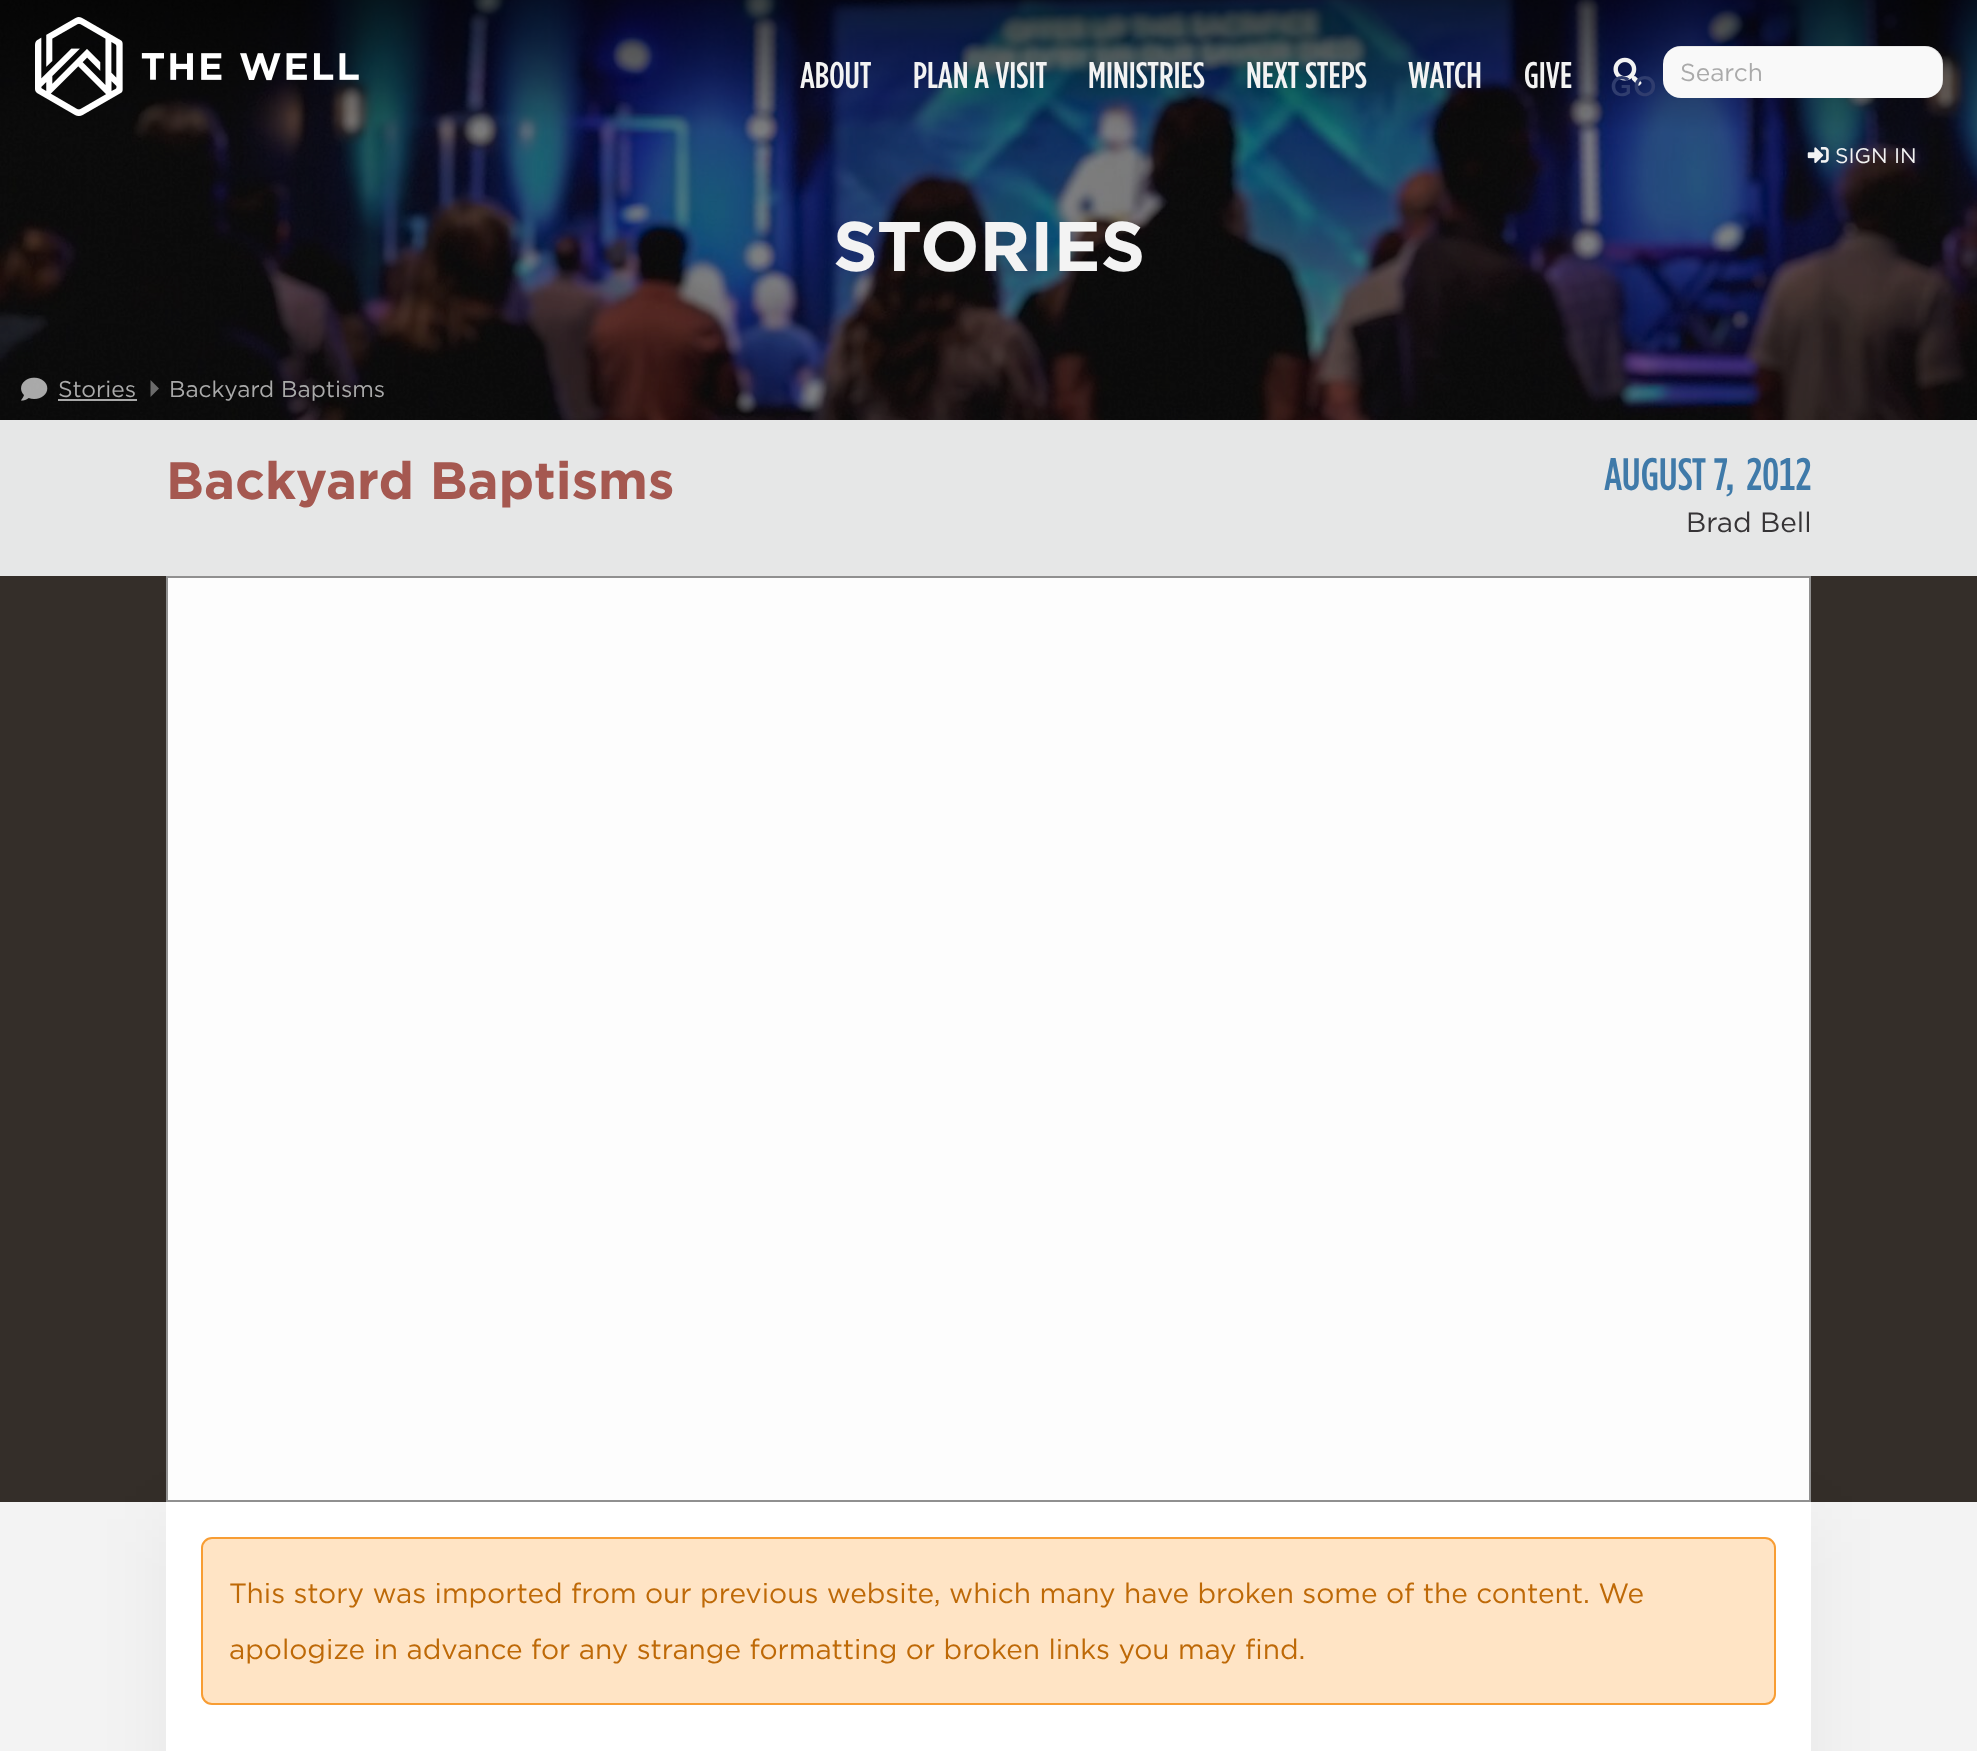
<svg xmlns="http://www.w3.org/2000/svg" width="1977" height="1751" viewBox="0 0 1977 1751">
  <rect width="100%" height="100%" fill="#e6e7e7"/>
  <image x="0" y="0" width="1977" height="420" href="img/4.png"/>
  <image x="35" y="17" width="324" height="99" href="img/1.png"/>
  <image x="1613" y="57" width="29" height="29" href="img/2.png"/>
  <rect x="1663" y="46" width="280" height="52" rx="18" fill="#f9f9f9"/>
  <path d="M1680 47H1925C1935 47 1942 55 1942 65V82L1941 88C1942 86 1943 83 1943 80V64C1943 54 1935 46 1925 46H1681C1676 46 1671 48 1668 51C1671 49 1675 47 1680 47Z" fill="#00000012"/>
  <image x="1807" y="147" width="22" height="17" href="img/3.png"/>
  <image x="21" y="377" width="27" height="24" href="img/5.png"/>
  <path d="M58 399h79v2H58z" fill="#ffffffa6"/>
  <path d="M150.5 397V380L159 388.5Z" fill="#6b6b6b"/>
  <path d="M0 576h1977v926H0z" fill="#342e29"/>
  <path d="M0 1502h1977v249H0z" fill="#f3f3f3"/>
  <path d="M166 1519h1645v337H166z" fill="#0000000d" filter="blur(35px)"/>
  <path d="M167 577h1643v924H167z" fill="#fdfdfd" stroke="#909090" stroke-width="2"/>
  <path d="M166 1502h1645v249H166z" fill="#fff"/>
  <rect x="202" y="1538" width="1573" height="166" rx="10" fill="#ffe4c5" stroke="#f89d33" stroke-width="2"/>
  <g font-family="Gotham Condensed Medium" font-size="37" font-weight="500" fill="#f3f3f3">
    <text x="800" y="88">ABOUT</text>
    <text x="913" y="88">PLAN A VISIT</text>
    <text x="1088" y="88">MINISTRIES</text>
    <text x="1246" y="88">NEXT STEPS</text>
    <text x="1408" y="88">WATCH</text>
    <text x="1524" y="88">GIVE</text>
  </g>
  <text x="1680" y="81" font-family="Gotham" font-size="24.5" fill="#aaa">Search</text>
  <text x="1610" y="96" font-family="Gotham" font-size="28" font-weight="500" letter-spacing="1" fill="#303d6e">GO</text>
  <text x="1835" y="163" font-family="Gotham" font-size="21" fill="#f3f3f3">SIGN IN</text>
  <text x="833" y="271" font-family="Gotham" font-size="70" font-weight="bold" fill="#f3f3f3">STORIES</text>
  <g font-family="Gotham" font-size="22.75" fill="#aaa">
    <text x="58" y="397">Stories</text>
    <text x="169" y="397">Backyard Baptisms</text>
  </g>
  <text x="166" y="499" font-family="Gotham" font-size="52.5" font-weight="bold" fill="#a55850">Backyard Baptisms</text>
  <text x="1604" y="490" font-family="Gotham Condensed Medium" font-size="45.5" font-weight="500" fill="#3f7aa9">AUGUST 7,</text>
  <text x="1746" y="490" font-family="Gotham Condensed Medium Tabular" font-size="45.5" font-weight="500" fill="#3f7aa9">2012</text>
  <text x="1686" y="532" font-family="Gotham" font-size="28" fill="#363436">Brad Bell</text>
  <g font-family="Gotham" font-size="28" fill="#be6907">
    <text x="229" y="1603">This story was imported from our previous website, which many have broken some of the content. We</text>
    <text x="229" y="1659">apologize in advance for any strange formatting or broken links you may find.</text>
  </g>
</svg>
